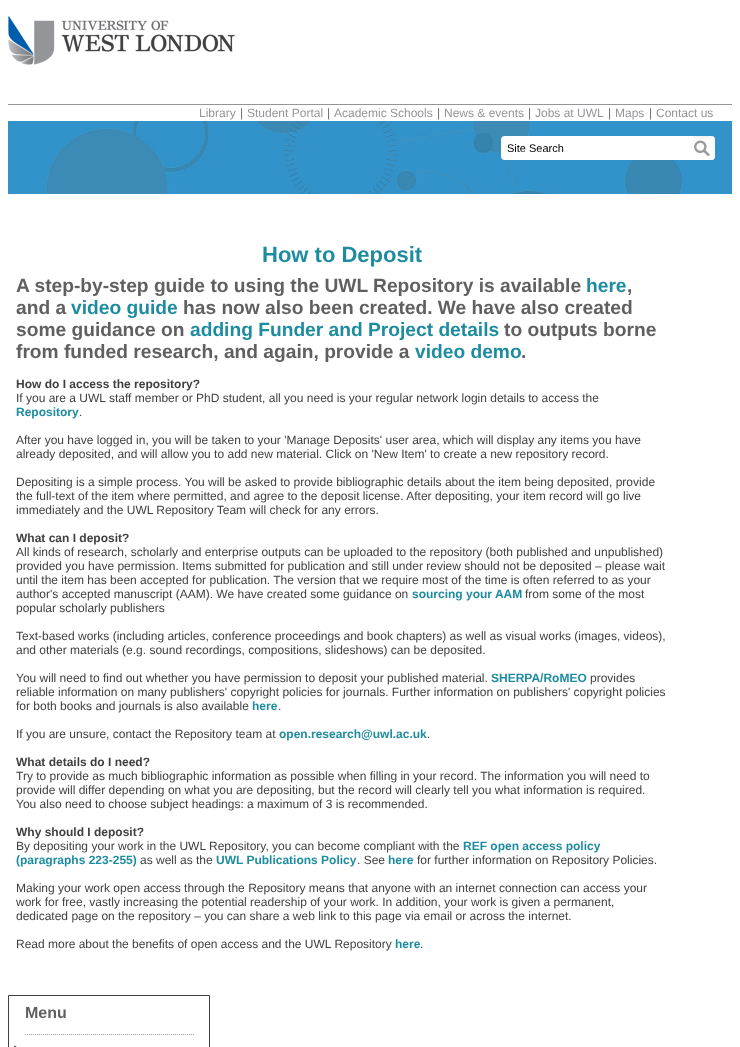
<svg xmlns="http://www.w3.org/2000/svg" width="740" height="1047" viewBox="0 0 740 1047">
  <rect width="100%" height="100%" fill="#fff"/>
  <path d="M8 104h724v1H8z" fill="#939598"/>
  <image x="8" y="16" width="227" height="49" href="img/1.png"/>
  <image x="8" y="121" width="724" height="73" href="img/3.png"/>
  <rect x="501" y="136" width="214" height="24" rx="4" fill="#fff"/>
  <image x="693" y="136" width="22" height="24" href="img/2.png"/>
  <path d="M8.5 995.5h201v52H8.5z" fill="none" stroke="#404040"/>
  <image x="14" y="1045" width="3" height="2" href="img/4.png"/>
  <path d="M25 1034.5H195" fill="none" stroke="#9f9fa0" stroke-dasharray="1 1"/>
  <text x="199" y="117" font-family="Liberation Sans" font-size="12" fill="#939598">Library</text>
  <text x="240" y="117" font-family="Liberation Sans" font-size="12" fill="#6d6e71">|</text>
  <text x="247" y="117" font-family="Liberation Sans" font-size="12" fill="#939598">Student Portal</text>
  <text x="327" y="117" font-family="Liberation Sans" font-size="12" fill="#6d6e71">|</text>
  <text x="334" y="117" font-family="Liberation Sans" font-size="12" fill="#939598">Academic Schools</text>
  <text x="437" y="117" font-family="Liberation Sans" font-size="12" fill="#6d6e71">|</text>
  <text x="444" y="117" font-family="Liberation Sans" font-size="12" fill="#939598">News &amp; events</text>
  <text x="528" y="117" font-family="Liberation Sans" font-size="12" fill="#6d6e71">|</text>
  <text x="535" y="117" font-family="Liberation Sans" font-size="12" fill="#939598">Jobs at UWL</text>
  <text x="608" y="117" font-family="Liberation Sans" font-size="12" fill="#6d6e71">|</text>
  <text x="615" y="117" font-family="Liberation Sans" font-size="12" fill="#939598">Maps</text>
  <text x="649" y="117" font-family="Liberation Sans" font-size="12" fill="#6d6e71">|</text>
  <text x="656" y="117" font-family="Liberation Sans" font-size="12" fill="#939598">Contact us</text>
  <text x="507" y="152" font-family="Liberation Sans" font-size="11" fill="#000">Site Search</text>
  <text x="262" y="262" font-family="Liberation Sans" font-size="22" font-weight="bold" fill="#1e8ca0">How to Deposit</text>
  <text x="16" y="292" font-family="Liberation Sans" font-size="19.2" font-weight="bold" fill="#606060">A step-by-step guide to using the UWL Repository is available</text>
  <text x="586" y="292" font-family="Liberation Sans" font-size="19.2" font-weight="bold" fill="#1e8ca0">here</text>
  <g font-family="Liberation Sans" font-size="19.2" font-weight="bold" fill="#606060">
    <text x="627" y="292">,</text>
    <text x="16" y="314">and a</text>
  </g>
  <text x="71" y="314" font-family="Liberation Sans" font-size="19.2" font-weight="bold" fill="#1e8ca0">video guide</text>
  <g font-family="Liberation Sans" font-size="19.2" font-weight="bold" fill="#606060">
    <text x="183" y="314">has now also been created. We have also created</text>
    <text x="16" y="336">some guidance on</text>
  </g>
  <text x="190" y="336" font-family="Liberation Sans" font-size="19.2" font-weight="bold" fill="#1e8ca0">adding Funder and Project details</text>
  <g font-family="Liberation Sans" font-size="19.2" font-weight="bold" fill="#606060">
    <text x="504" y="336">to outputs borne</text>
    <text x="16" y="358">from funded research, and again, provide a</text>
  </g>
  <text x="415" y="358" font-family="Liberation Sans" font-size="19.2" font-weight="bold" fill="#1e8ca0">video demo</text>
  <text x="521" y="358" font-family="Liberation Sans" font-size="19.2" font-weight="bold" fill="#606060">.</text>
  <text x="16" y="388" font-family="Liberation Sans" font-size="12" font-weight="bold" fill="#404041">How do I access the repository?</text>
  <text x="16" y="402" font-family="Liberation Sans" font-size="12" fill="#404041">If you are a UWL staff member or PhD student, all you need is your regular network login details to access the</text>
  <text x="16" y="416" font-family="Liberation Sans" font-size="12" font-weight="bold" fill="#1e8ca0">Repository</text>
  <g font-family="Liberation Sans" font-size="12" fill="#404041">
    <text x="79" y="416">.</text>
    <text x="16" y="444">After you have logged in, you will be taken to your 'Manage Deposits' user area, which will display any items you have</text>
    <text x="16" y="458">already deposited, and will allow you to add new material. Click on 'New Item' to create a new repository record.</text>
    <text x="16" y="486">Depositing is a simple process. You will be asked to provide bibliographic details about the item being deposited, provide</text>
    <text x="16" y="500">the full-text of the item where permitted, and agree to the deposit license. After depositing, your item record will go live</text>
    <text x="16" y="514">immediately and the UWL Repository Team will check for any errors.</text>
  </g>
  <text x="16" y="542" font-family="Liberation Sans" font-size="12" font-weight="bold" fill="#404041">What can I deposit?</text>
  <g font-family="Liberation Sans" font-size="12" fill="#404041">
    <text x="16" y="556">All kinds of research, scholarly and enterprise outputs can be uploaded to the repository (both published and unpublished)</text>
    <text x="16" y="570">provided you have permission. Items submitted for publication and still under review should not be deposited – please wait</text>
    <text x="16" y="584">until the item has been accepted for publication. The version that we require most of the time is often referred to as your</text>
    <text x="16" y="598">author's accepted manuscript (AAM). We have created some guidance on</text>
  </g>
  <text x="412" y="598" font-family="Liberation Sans" font-size="12" font-weight="bold" fill="#1e8ca0">sourcing your AAM</text>
  <g font-family="Liberation Sans" font-size="12" fill="#404041">
    <text x="525" y="598">from some of the most</text>
    <text x="16" y="612">popular scholarly publishers</text>
    <text x="16" y="640">Text-based works (including articles, conference proceedings and book chapters) as well as visual works (images, videos),</text>
    <text x="16" y="654">and other materials (e.g. sound recordings, compositions, slideshows) can be deposited.</text>
    <text x="16" y="682">You will need to find out whether you have permission to deposit your published material.</text>
  </g>
  <text x="491" y="682" font-family="Liberation Sans" font-size="12" font-weight="bold" fill="#1e8ca0">SHERPA/RoMEO</text>
  <g font-family="Liberation Sans" font-size="12" fill="#404041">
    <text x="590" y="682">provides</text>
    <text x="16" y="696">reliable information on many publishers' copyright policies for journals. Further information on publishers' copyright policies</text>
    <text x="16" y="710">for both books and journals is also available</text>
  </g>
  <text x="252" y="710" font-family="Liberation Sans" font-size="12" font-weight="bold" fill="#1e8ca0">here</text>
  <g font-family="Liberation Sans" font-size="12" fill="#404041">
    <text x="278" y="710">.</text>
    <text x="16" y="738">If you are unsure, contact the Repository team at</text>
  </g>
  <text x="279" y="738" font-family="Liberation Sans" font-size="12" font-weight="bold" fill="#1e8ca0">open.research@uwl.ac.uk</text>
  <text x="427" y="738" font-family="Liberation Sans" font-size="12" fill="#404041">.</text>
  <text x="16" y="766" font-family="Liberation Sans" font-size="12" font-weight="bold" fill="#404041">What details do I need?</text>
  <g font-family="Liberation Sans" font-size="12" fill="#404041">
    <text x="16" y="780">Try to provide as much bibliographic information as possible when filling in your record. The information you will need to</text>
    <text x="16" y="794">provide will differ depending on what you are depositing, but the record will clearly tell you what information is required.</text>
    <text x="16" y="808">You also need to choose subject headings: a maximum of 3 is recommended.</text>
  </g>
  <text x="16" y="836" font-family="Liberation Sans" font-size="12" font-weight="bold" fill="#404041">Why should I deposit?</text>
  <text x="16" y="850" font-family="Liberation Sans" font-size="12" fill="#404041">By depositing your work in the UWL Repository, you can become compliant with the</text>
  <g font-family="Liberation Sans" font-size="12" font-weight="bold" fill="#1e8ca0">
    <text x="463" y="850">REF open access policy</text>
    <text x="16" y="864">(paragraphs 223-255)</text>
  </g>
  <text x="140" y="864" font-family="Liberation Sans" font-size="12" fill="#404041">as well as the</text>
  <text x="216" y="864" font-family="Liberation Sans" font-size="12" font-weight="bold" fill="#1e8ca0">UWL Publications Policy</text>
  <text x="357" y="864" font-family="Liberation Sans" font-size="12" fill="#404041">. See</text>
  <text x="388" y="864" font-family="Liberation Sans" font-size="12" font-weight="bold" fill="#1e8ca0">here</text>
  <g font-family="Liberation Sans" font-size="12" fill="#404041">
    <text x="417" y="864">for further information on Repository Policies.</text>
    <text x="16" y="892">Making your work open access through the Repository means that anyone with an internet connection can access your</text>
    <text x="16" y="906">work for free, vastly increasing the potential readership of your work. In addition, your work is given a permanent,</text>
    <text x="16" y="920">dedicated page on the repository – you can share a web link to this page via email or across the internet.</text>
    <text x="16" y="948">Read more about the benefits of open access and the UWL Repository</text>
  </g>
  <text x="395" y="948" font-family="Liberation Sans" font-size="12" font-weight="bold" fill="#1e8ca0">here</text>
  <text x="420" y="948" font-family="Liberation Sans" font-size="12" fill="#404041">.</text>
  <text x="25" y="1018" font-family="Liberation Sans" font-size="16" font-weight="bold" fill="#606060">Menu</text>
</svg>
